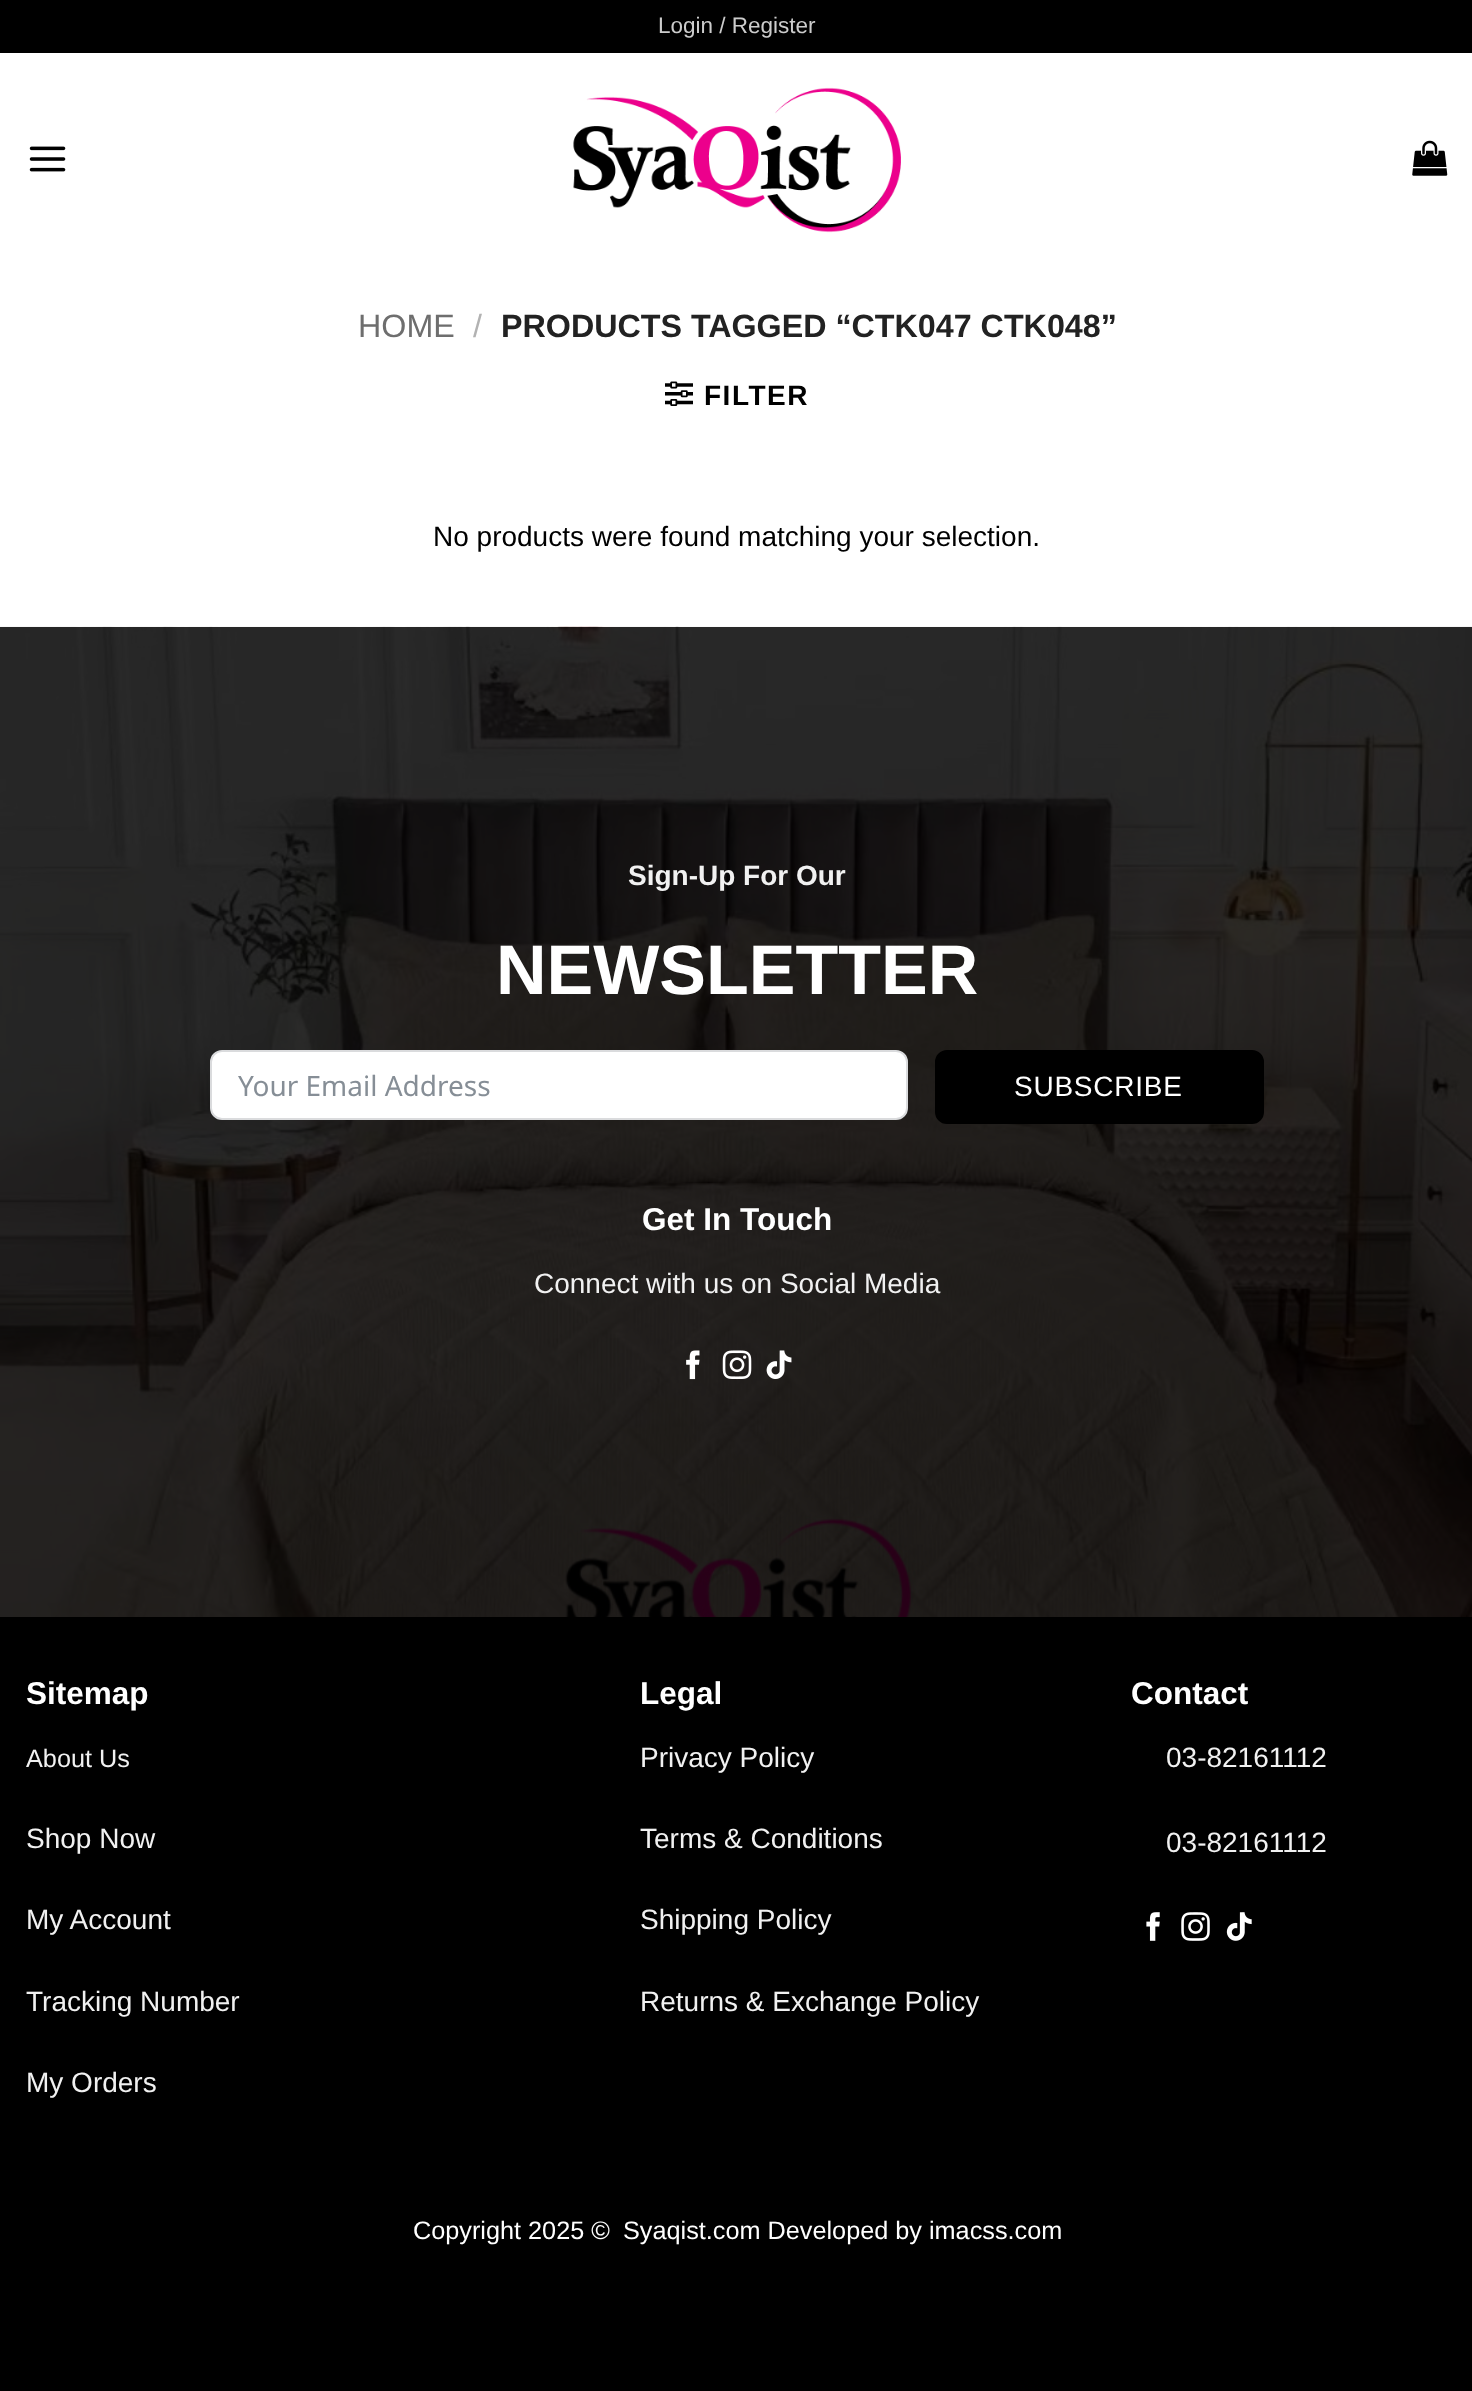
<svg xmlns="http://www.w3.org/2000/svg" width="1472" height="2391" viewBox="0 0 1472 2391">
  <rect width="100%" height="100%" fill="#000"/>
  <path d="M0 53h1472v574H0z" fill="#fff"/>
  <image x="29" y="146" width="37" height="26" href="img/1.png"/>
  <image x="573" y="87" width="328" height="146" href="img/2.png"/>
  <image x="1412" y="140" width="36" height="36" href="img/3.png"/>
  <image x="665" y="381" width="28" height="25" href="img/4.png"/>
  <image x="0" y="626" width="1472" height="991" href="img/5.png"/>
  <rect x="211" y="1051" width="696" height="68" rx="11" fill="#fff" stroke="#dadbdd" stroke-width="2"/>
  <rect x="936" y="1051" width="327" height="72" rx="11" fill="#000" stroke="#000" stroke-width="2"/>
  <image x="686" y="1350" width="14" height="30" href="img/6.png"/>
  <image x="722" y="1350" width="30" height="30" href="img/7.png"/>
  <image x="766" y="1350" width="26" height="29" href="img/8.png"/>
  <image x="1146" y="1912" width="14" height="29" href="img/9.png"/>
  <image x="1181" y="1912" width="29" height="29" href="img/10.png"/>
  <image x="1226" y="1912" width="26" height="29" href="img/11.png"/>
  <text x="658" y="33" font-family="Liberation Sans" font-size="22.5" fill="#ccc">Login / Register</text>
  <text x="358" y="337" font-family="Liberation Sans" font-size="32.25" fill="#6e6e6e">HOME</text>
  <text x="473" y="337" font-family="Liberation Sans" font-size="32.25" fill="#b2b2b2">/</text>
  <text x="501" y="337" font-family="Liberation Sans" font-size="32.25" font-weight="bold" fill="#222">PRODUCTS TAGGED “CTK047 CTK048”</text>
  <text x="704" y="405" font-family="Liberation Sans" font-size="28" font-weight="bold" letter-spacing="1.5" fill="#000">FILTER</text>
  <text x="433" y="546" font-family="Liberation Sans" font-size="28" fill="#000">No products were found matching your selection.</text>
  <text x="628" y="885" font-family="Liberation Sans" font-size="28" font-weight="bold" fill="#f1f1f1">Sign-Up For Our</text>
  <text x="496" y="994" font-family="Liberation Sans" font-size="70" font-weight="bold" fill="#fff">NEWSLETTER</text>
  <text x="238" y="1096" font-family="Noto Sans" font-size="28" fill="#868e96">Your Email Address</text>
  <text x="1014" y="1096" font-family="Liberation Sans" font-size="28" letter-spacing="0.75" fill="#fff">SUBSCRIBE</text>
  <text x="642" y="1230" font-family="Liberation Sans" font-size="31.5" font-weight="bold" fill="#fff">Get In Touch</text>
  <text x="534" y="1293" font-family="Liberation Sans" font-size="28" fill="#f1f1f1">Connect with us on Social Media</text>
  <text x="26" y="1704" font-family="Liberation Sans" font-size="31.5" font-weight="bold" fill="#fff">Sitemap</text>
  <text x="26" y="1767" font-family="Liberation Sans" font-size="25.25" fill="#f1f1f1">About Us</text>
  <g font-family="Liberation Sans" font-size="28" fill="#f1f1f1">
    <text x="26" y="1848">Shop Now</text>
    <text x="26" y="1929">My Account</text>
    <text x="26" y="2011">Tracking Number</text>
    <text x="26" y="2092">My Orders</text>
  </g>
  <text x="640" y="1704" font-family="Liberation Sans" font-size="31.5" font-weight="bold" fill="#fff">Legal</text>
  <g font-family="Liberation Sans" font-size="28" fill="#f1f1f1">
    <text x="640" y="1767">Privacy Policy</text>
    <text x="640" y="1848">Terms &amp; Conditions</text>
    <text x="640" y="1929">Shipping Policy</text>
    <text x="640" y="2011">Returns &amp; Exchange Policy</text>
  </g>
  <text x="1131" y="1704" font-family="Liberation Sans" font-size="31.5" font-weight="bold" fill="#fff">Contact</text>
  <g font-family="Liberation Sans" font-size="28" fill="#f1f1f1">
    <text x="1166" y="1767">03-82161112</text>
    <text x="1166" y="1852">03-82161112</text>
  </g>
  <g font-family="Liberation Sans" font-size="25.25" fill="#fff">
    <text x="413" y="2239">Copyright 2025 ©</text>
    <text x="623" y="2239">Syaqist.com Developed by imacss.com</text>
  </g>
</svg>
